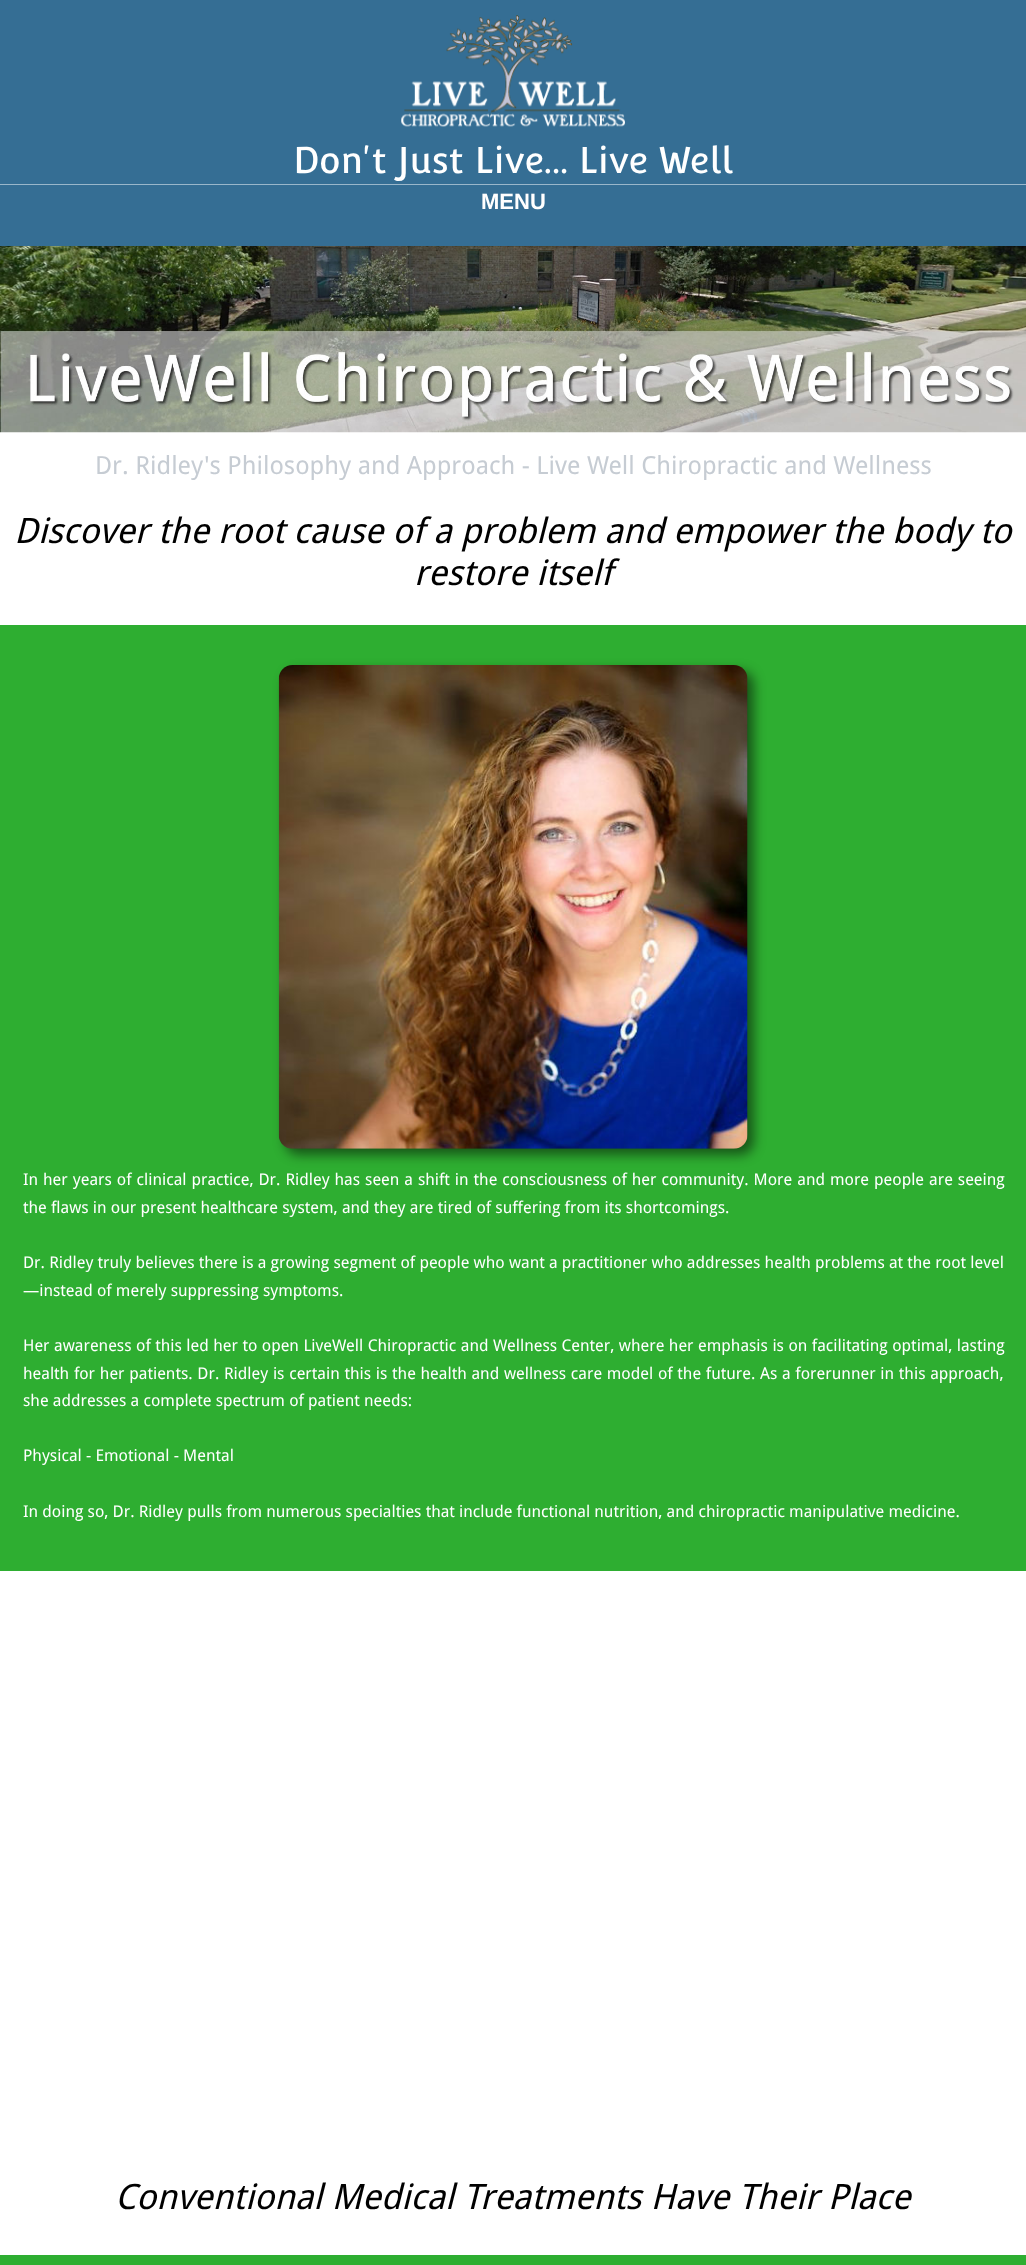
<svg xmlns="http://www.w3.org/2000/svg" width="1026" height="2265" viewBox="0 0 1026 2265">
  <rect width="100%" height="100%" fill="#fff"/>
  <path d="M0 0h1026v246H0z" fill="#356e94"/>
  <image x="401" y="15" width="224" height="112" href="img/1.png"/>
  <path d="M0 184h1026v1H0z" fill="#9ab7ca"/>
  <image x="0" y="246" width="1026" height="187" href="img/2.png"/>
  <path d="M0 625h1026v946H0z" fill="#2eae31"/>
  <rect x="285" y="671" width="469" height="484" rx="14" fill="#00000080" filter="blur(6px)"/>
  <image x="278" y="665" width="470" height="484" href="img/3.png"/>
  <path d="M0 2255h1026v10H0z" fill="#2eae31"/>
  <text x="293" y="173" font-family="Convergence" font-size="36.25" fill="#fff">Don't Just Live... Live Well</text>
  <text x="481" y="209" font-family="Liberation Sans" font-size="22" font-weight="bold" fill="#fff">MENU</text>
  <text x="95" y="474" font-family="Droid Sans" font-size="25" fill="#c6ccd3">Dr. Ridley's Philosophy and Approach - Live Well Chiropractic and Wellness</text>
  <g font-family="Droid Sans" font-size="35" font-style="italic" fill="#000">
    <text x="14" y="543">Discover the root cause of a problem and empower the body to</text>
    <text x="414" y="585">restore itself</text>
  </g>
  <g font-family="Droid Sans" font-size="16.25" fill="#fff">
    <text x="23" y="1185" word-spacing="0.75">In her years of clinical practice, Dr. Ridley has seen a shift in the consciousness of her community. More and more people are seeing</text>
    <text x="23" y="1213">the flaws in our present healthcare system, and they are tired of suffering from its shortcomings.</text>
    <text x="23" y="1268">Dr. Ridley truly believes there is a growing segment of people who want a practitioner who addresses health problems at the root level</text>
    <text x="23" y="1296">—instead of merely suppressing symptoms.</text>
    <text x="23" y="1351" word-spacing="0.25">Her awareness of this led her to open LiveWell Chiropractic and Wellness Center, where her emphasis is on facilitating optimal, lasting</text>
    <text x="23" y="1379" word-spacing="0.5">health for her patients. Dr. Ridley is certain this is the health and wellness care model of the future. As a forerunner in this approach,</text>
    <text x="23" y="1406">she addresses a complete spectrum of patient needs:</text>
    <text x="23" y="1461">Physical - Emotional - Mental</text>
    <text x="23" y="1517">In doing so, Dr. Ridley pulls from numerous specialties that include functional nutrition, and chiropractic manipulative medicine.</text>
  </g>
  <text x="115" y="2209" font-family="Droid Sans" font-size="35" font-style="italic" fill="#000">Conventional Medical Treatments Have Their Place</text>
</svg>
